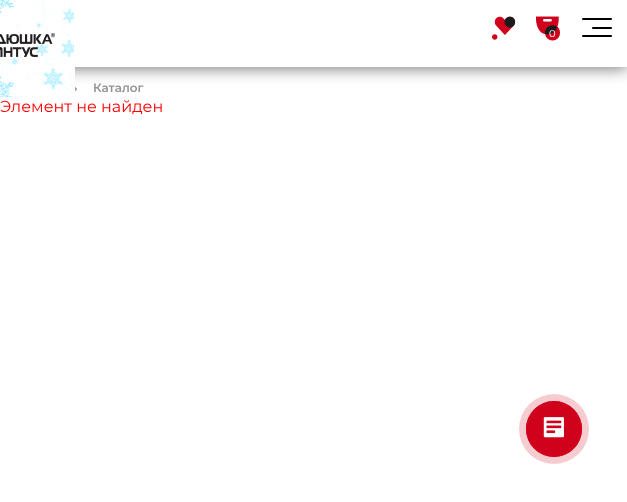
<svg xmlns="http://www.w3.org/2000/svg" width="627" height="502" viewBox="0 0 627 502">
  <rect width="100%" height="100%" fill="#fff"/>
  <image x="75" y="86" width="2" height="6" href="img/7.png"/>
  <path d="M0 5h627v64H0z" fill="#00000080" filter="blur(7.5px)"/>
  <path d="M75 0h552v67H75z" fill="#fff"/>
  <image x="0" y="0" width="75" height="97" href="img/1.png"/>
  <image x="492" y="34" width="6" height="6" href="img/4.png"/>
  <image x="494" y="16" width="21" height="19" href="img/2.png"/>
  <image x="504" y="16" width="12" height="12" href="img/3.png"/>
  <path d="M552.5 40.5C562.5 40.5 562.5 25 552.5 25C542.5 25 542.5 40.5 552.5 40.5Z" fill="#d0021b"/>
  <image x="536" y="16" width="23" height="19" href="img/5.png"/>
  <image x="544" y="25" width="14" height="10" href="img/6.png"/>
  <rect x="582" y="18" width="30" height="2" rx="1" fill="#000"/>
  <rect x="592" y="27" width="20" height="2" rx="1" fill="#000"/>
  <rect x="582" y="35" width="30" height="2" rx="1" fill="#000"/>
  <circle cx="554" cy="429" r="35" fill="#f6ccd1"/>
  <circle cx="554" cy="429" r="27.6" fill="none" stroke="#d0021b" stroke-width="0.8"/>
  <circle cx="554" cy="429" r="28" fill="#d0021b"/>
  <image x="543" y="417" width="21" height="21" href="img/8.png"/>
  <text x="549" y="37" font-family="Montserrat" font-size="10" fill="#fff">0</text>
  <text x="93" y="92" font-family="Montserrat" font-size="12" font-weight="600" fill="#939393">Каталог</text>
  <text x="0" y="112" font-family="Montserrat" font-size="16" fill="#f00">Элемент не найден</text>
</svg>
